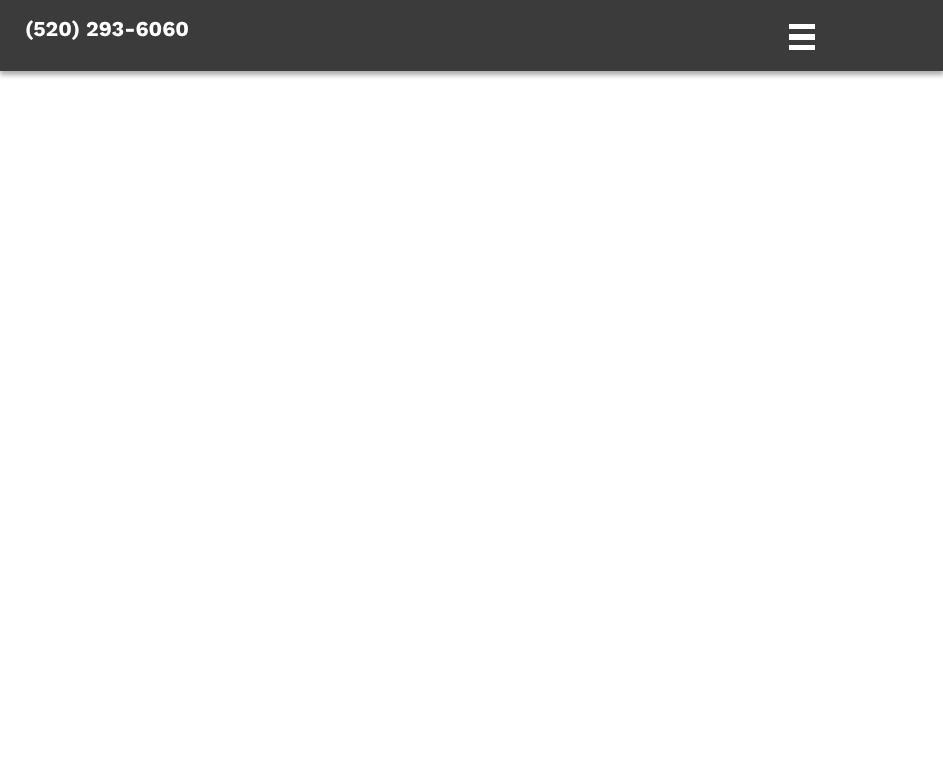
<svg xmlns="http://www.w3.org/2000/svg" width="943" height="776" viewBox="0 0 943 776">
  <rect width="100%" height="100%" fill="#fff"/>
  <path d="M0 4h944v71H0z" fill="#33333366" filter="blur(2.5px)"/>
  <path d="M0 0h943v71H0z" fill="#3b3b3b"/>
  <path d="M789 24h26v5H789z" fill="#fff"/>
  <path d="M789 34h26v6H789z" fill="#fff"/>
  <path d="M789 45h26v5H789z" fill="#fff"/>
  <text x="25" y="36" font-family="Work Sans" font-size="21.25" font-weight="bold" fill="#fff">(520) 293-6060</text>
</svg>
